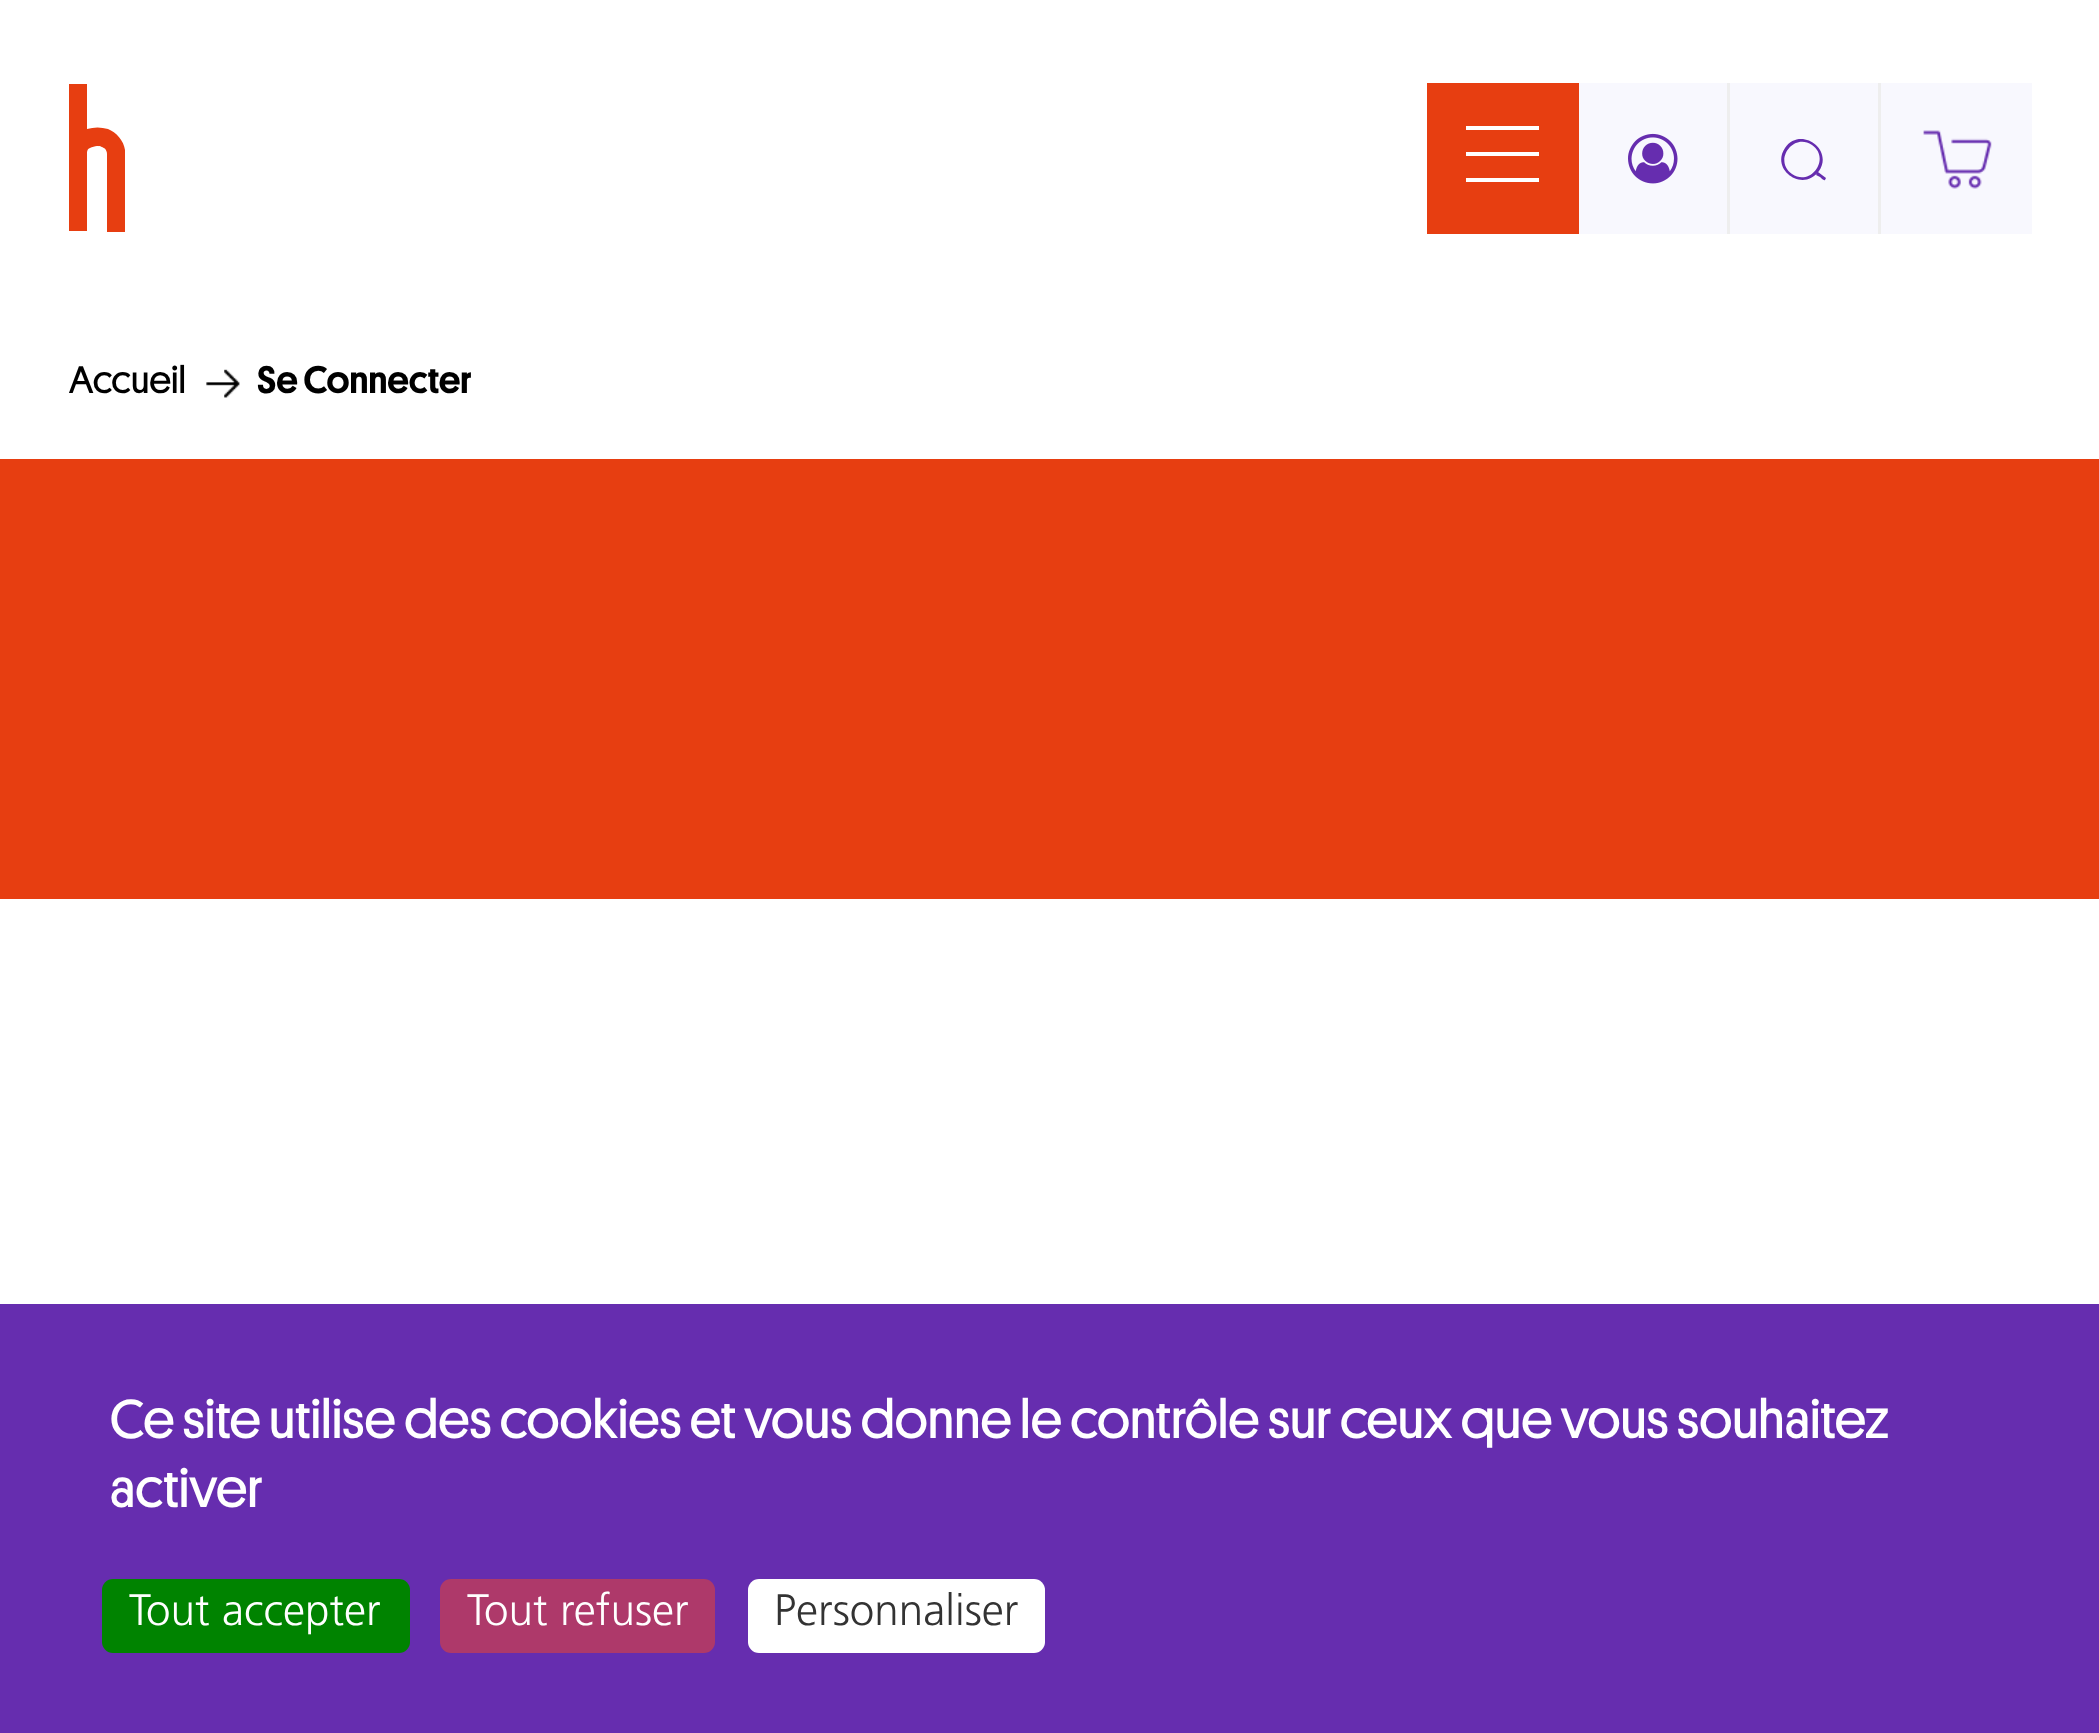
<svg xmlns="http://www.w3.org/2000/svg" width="2099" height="1733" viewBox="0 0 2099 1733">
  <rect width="100%" height="100%" fill="#fff"/>
  <path d="M87 231H69V84H87V129C94 127 101 127 108 129C116 132 124 141 125 150V232H107V154C107 152 106 149 104 148C102 147 101 146 97 146C95 146 92 147 90 148C87 149 87 152 87 154Z" fill="#e73e11"/>
  <path d="M1427 83h152v151H1427z" fill="#e73e11"/>
  <path d="M1466 126V130H1539V126ZM1466 152V156H1539V152ZM1466 178V182H1539V178Z" fill="#fff"/>
  <path d="M1579 83h148v151H1579z" fill="#f8f8fe"/>
  <path d="M1727 83h3v151H1727z" fill="#eee"/>
  <image x="1628" y="133" width="50" height="51" href="img/1.png"/>
  <path d="M1730 83h148v151H1730z" fill="#f8f8fe"/>
  <path d="M1878 83h3v151H1878z" fill="#eee"/>
  <path d="M1819 171C1834 149 1800 126 1785 148C1770 170 1803 193 1819 171ZM1792 174C1773 161 1793 132 1812 145C1831 158 1811 187 1792 174ZM1816 175L1820 177C1821 178 1824 181 1825 180L1826 178L1818 172Z" fill="#662daf"/>
  <path d="M1881 83h151v151H1881z" fill="#f8f8fe"/>
  <image x="1923" y="130" width="69" height="59" href="img/2.png"/>
  <image x="206" y="369" width="34" height="29" href="img/3.png"/>
  <path d="M0 459h2099v440H0z" fill="#e73e11"/>
  <path d="M0 1304h2099v429H0z" fill="#662daf"/>
  <rect x="102" y="1579" width="308" height="74" rx="11" fill="#008300"/>
  <rect x="440" y="1579" width="275" height="74" rx="11" fill="#ae396a"/>
  <rect x="748" y="1579" width="297" height="74" rx="11" fill="#fff"/>
  <text x="69" y="393" font-family="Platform" font-size="38.5" fill="#000">Accueil</text>
  <text x="257" y="393" font-family="Platform" font-size="38.5" font-weight="500" fill="#000">Se Connecter</text>
  <g font-family="Platform" font-size="55" fill="#fff">
    <text x="110" y="1438">Ce site utilise des cookies et vous donne le contrôle sur ceux que vous souhaitez</text>
    <text x="110" y="1507">activer</text>
  </g>
  <g font-family="Frutiger" font-size="44" font-weight="300" fill="#fff">
    <text x="129" y="1625">Tout accepter</text>
    <text x="467" y="1625">Tout refuser</text>
  </g>
  <text x="774" y="1625" font-family="Frutiger" font-size="44" font-weight="300" fill="#333">Personnaliser</text>
</svg>
